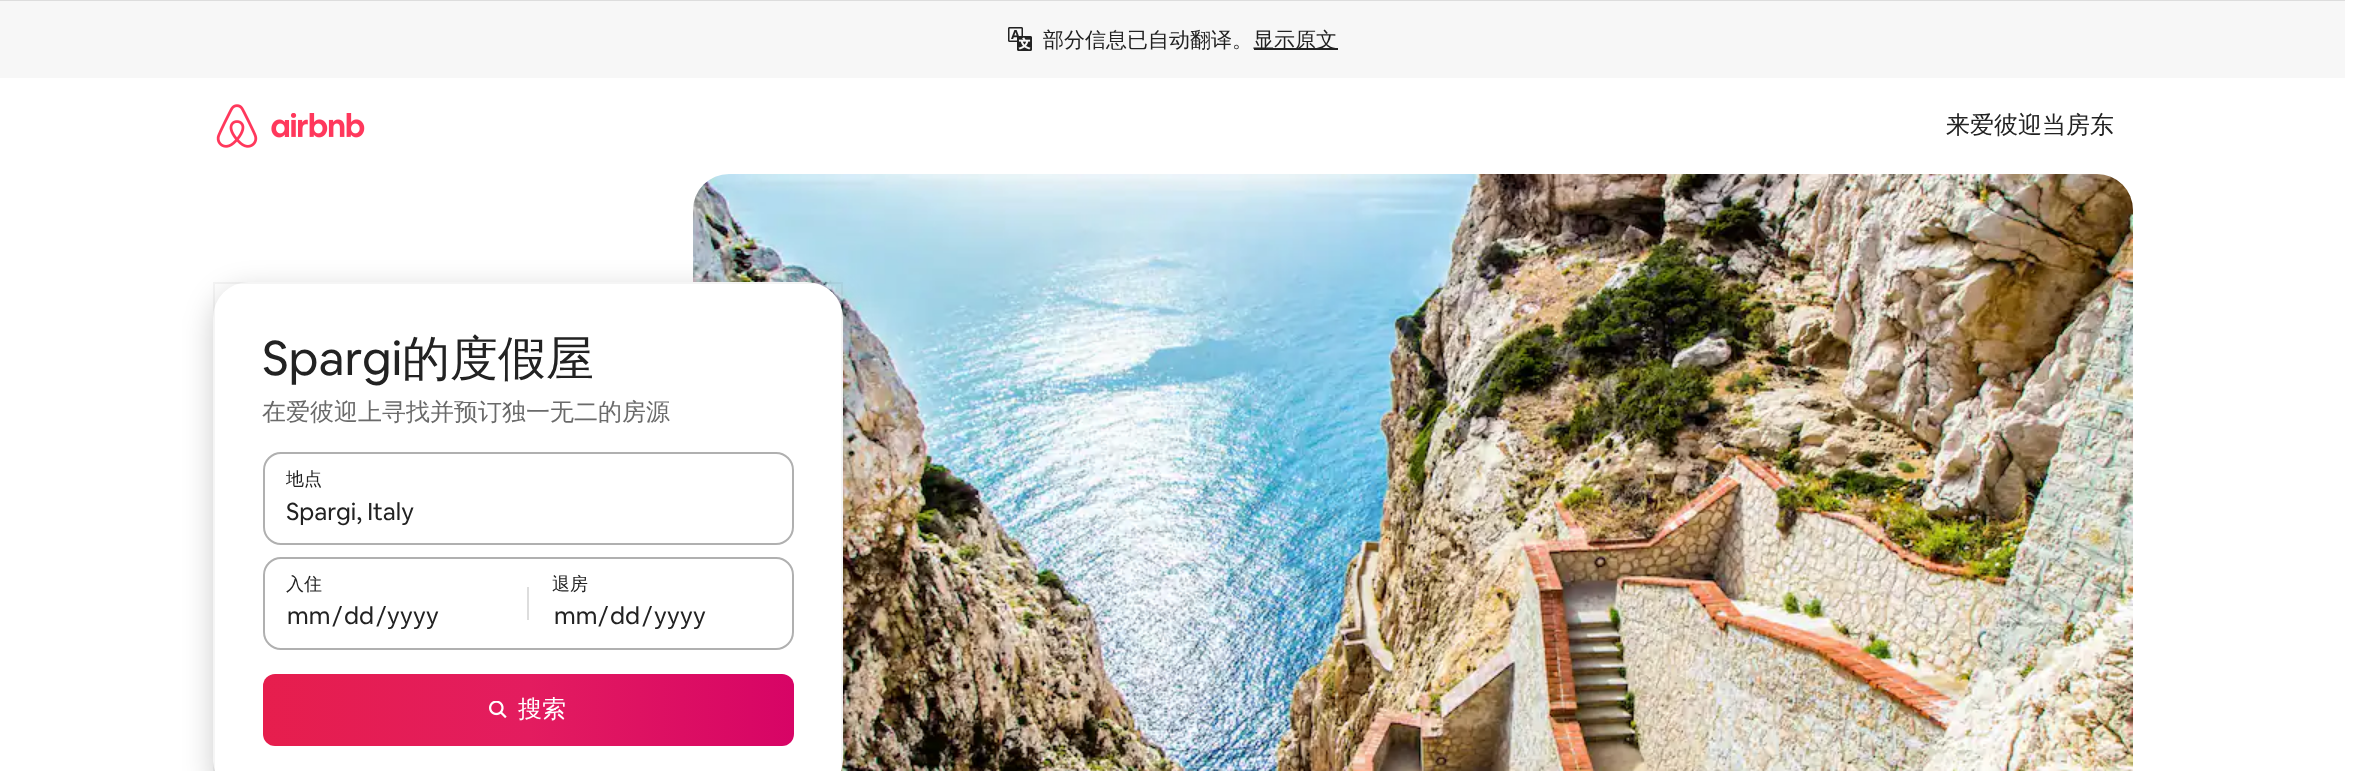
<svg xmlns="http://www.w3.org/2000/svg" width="2367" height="771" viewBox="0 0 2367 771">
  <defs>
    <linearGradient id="g1" gradientUnits="userSpaceOnUse" x1="263" y1="710" x2="794" y2="710"><stop offset="0" stop-color="#e61e4d"/><stop offset="0.5" stop-color="#e31c5f"/><stop offset="1" stop-color="#d70466"/></linearGradient>
  </defs>
  <rect width="100%" height="100%" fill="#fff"/>
  <path d="M0 1h2345v77H0z" fill="#f7f7f7"/>
  <image x="1008" y="27" width="24" height="24" href="img/1.png"/>
  <path d="M1254 48h84v2H1254z" fill="#222"/>
  <path d="M0 0h2345v1H0z" fill="#ddd"/>
  <image x="216" y="104" width="42" height="44" href="img/2.png"/>
  <image x="271" y="113" width="94" height="25" href="img/3.png"/>
  <image x="693" y="174" width="1440" height="597" href="img/5.png"/>
  <rect x="213" y="291" width="630" height="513" rx="36" fill="#00000033" filter="blur(15px)"/>
  <rect x="213" y="282" width="630" height="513" rx="36" fill="#fff"/>
  <path d="M214 283h628v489H214z" fill="none" stroke="#0000000a" stroke-width="2"/>
  <rect x="264" y="453" width="529" height="91" rx="17" fill="none" stroke="#b0b0b0" stroke-width="2"/>
  <rect x="264" y="558" width="529" height="91" rx="17" fill="none" stroke="#b0b0b0" stroke-width="2"/>
  <path d="M527 587h2v33H527z" fill="#ddd"/>
  <rect x="263" y="674" width="531" height="72" rx="12" fill="url(#g1)"/>
  <image x="489" y="701" width="18" height="18" href="img/4.png"/>
  <g font-family="WenQuanYi Zen Hei" font-size="21" font-weight="500" fill="#222">
    <text x="1043" y="47">部分信息已自动翻译。</text>
    <text x="1253" y="47">显示原文</text>
  </g>
  <text x="1946" y="133" font-family="WenQuanYi Zen Hei" font-size="24" font-weight="500" fill="#222">来爱彼迎当房东</text>
  <text x="262" y="375" font-family="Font" font-size="48" fill="#222">Spargi</text>
  <text x="402" y="375" font-family="WenQuanYi Zen Hei" font-size="48" font-weight="500" fill="#222">的度假屋</text>
  <text x="262" y="420" font-family="WenQuanYi Zen Hei" font-size="24" font-weight="500" fill="#6a6a6a">在爱彼迎上寻找并预订独一无二的房源</text>
  <text x="286" y="485" font-family="WenQuanYi Zen Hei" font-size="18" font-weight="500" fill="#222">地点</text>
  <text x="286" y="520" font-family="Font" font-size="24" fill="#222">Spargi, Italy</text>
  <text x="286" y="590" font-family="WenQuanYi Zen Hei" font-size="18" font-weight="500" fill="#222">入住</text>
  <g font-family="Font" font-size="24" fill="#222">
    <text x="287" y="624">mm</text>
    <text x="332" y="624">/</text>
    <text x="344" y="624">dd</text>
    <text x="376" y="624">/</text>
    <text x="387" y="624">yyyy</text>
  </g>
  <text x="552" y="590" font-family="WenQuanYi Zen Hei" font-size="18" font-weight="500" fill="#222">退房</text>
  <g font-family="Font" font-size="24" fill="#222">
    <text x="554" y="624">mm</text>
    <text x="598" y="624">/</text>
    <text x="610" y="624">dd</text>
    <text x="642" y="624">/</text>
    <text x="654" y="624">yyyy</text>
  </g>
  <text x="518" y="717" font-family="WenQuanYi Zen Hei" font-size="24" font-weight="500" fill="#fff">搜索</text>
</svg>
